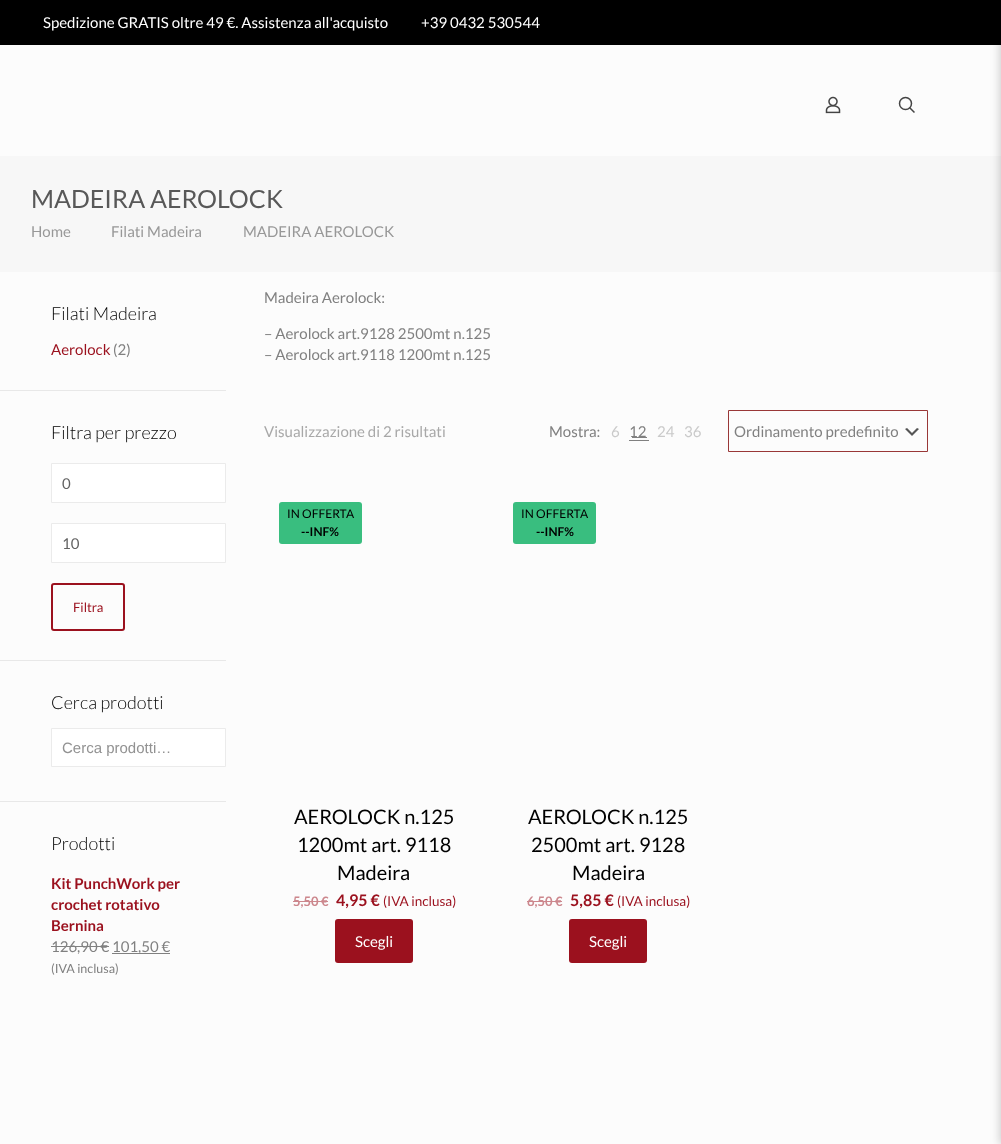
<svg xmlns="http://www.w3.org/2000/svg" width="1001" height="1144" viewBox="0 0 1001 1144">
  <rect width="100%" height="100%" fill="#fcfcfc"/>
  <path d="M0 0h1001v45H0z" fill="#000"/>
  <image x="825" y="96" width="16" height="18" href="img/1.png"/>
  <circle cx="905.5" cy="103.5" r="6" fill="none" stroke="#444" stroke-width="1.5"/>
  <path d="M909.5 107.5L914.5 112.5" fill="none" stroke="#444" stroke-width="1.5"/>
  <path d="M0 156h1001v116H0z" fill="#f7f7f7"/>
  <path d="M0 390h226v1H0z" fill="#e8e8e8"/>
  <path d="M51.5 463.5h174v39H51.5z" fill="#fff" stroke="#ebebeb"/>
  <path d="M51.5 523.5h174v39H51.5z" fill="#fff" stroke="#ebebeb"/>
  <rect x="52" y="584" width="72" height="46" rx="2" fill="none" stroke="#9b111e" stroke-width="2"/>
  <path d="M0 660h226v1H0z" fill="#e8e8e8"/>
  <path d="M51.5 728.5h174v38H51.5z" fill="#fff" stroke="#ebebeb"/>
  <path d="M0 801h226v1H0z" fill="#e8e8e8"/>
  <path d="M51 946h58v1H51z" fill="#808080"/>
  <path d="M112 953h58v1H112z" fill="#808080"/>
  <path d="M632 437h15v1H632z" fill="#808080"/>
  <path d="M629 440h20v1H629z" fill="#808080"/>
  <image x="905" y="428" width="14" height="8" href="img/2.png"/>
  <path d="M728.5 410.5h199v41H728.5z" fill="none" stroke="#993737"/>
  <rect x="279" y="502" width="83" height="42" rx="3" fill="#39be7f"/>
  <path d="M293 901h35v1H293z" fill="#cc878d"/>
  <rect x="335" y="919" width="78" height="44" rx="3" fill="#9b111e"/>
  <rect x="513" y="502" width="83" height="42" rx="3" fill="#39be7f"/>
  <path d="M527 901h28v1H527z" fill="#cc878d"/>
  <path d="M555 901h7v1H555z" fill="#cc878d"/>
  <rect x="569" y="919" width="78" height="44" rx="3" fill="#9b111e"/>
  <path d="M1000 -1h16v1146H1000z" fill="#00000033" filter="blur(5px)"/>
  <g font-family="Lato" font-size="15" fill="#fff">
    <text x="43" y="28">Spedizione GRATIS oltre 49 €. Assistenza all'acquisto</text>
    <text x="421" y="28">+39 0432 530544</text>
  </g>
  <text x="31" y="208" font-family="Lato" font-size="25" fill="#585858">MADEIRA AEROLOCK</text>
  <g font-family="Lato" font-size="15" fill="#989898">
    <text x="31" y="237">Home</text>
    <text x="111" y="237">Filati Madeira</text>
    <text x="243" y="237">MADEIRA AEROLOCK</text>
  </g>
  <text x="51" y="320" font-family="Lato" font-size="18" font-weight="300" fill="#000">Filati Madeira</text>
  <text x="51" y="355" font-family="Lato" font-size="15" fill="#9b111e">Aerolock</text>
  <text x="113" y="355" font-family="Lato" font-size="15" fill="#808080">(2)</text>
  <text x="51" y="439" font-family="Lato" font-size="18" font-weight="300" fill="#000">Filtra per prezzo</text>
  <g font-family="Lato" font-size="15" fill="#626262">
    <text x="62" y="489">0</text>
    <text x="62" y="549">10</text>
  </g>
  <text x="73" y="612" font-family="Lato" font-size="13" fill="#9b111e">Filtra</text>
  <text x="51" y="709" font-family="Lato" font-size="18" font-weight="300" fill="#000">Cerca prodotti</text>
  <text x="62" y="753" font-family="Liberation Sans" font-size="15" fill="#929292">Cerca prodotti…</text>
  <text x="51" y="850" font-family="Lato" font-size="18" font-weight="300" fill="#000">Prodotti</text>
  <g font-family="Lato" font-size="15" font-weight="bold" fill="#9b111e">
    <text x="51" y="889">Kit PunchWork per</text>
    <text x="51" y="910">crochet rotativo</text>
    <text x="51" y="931">Bernina</text>
  </g>
  <g font-family="Lato" font-size="15" fill="#808080">
    <text x="51" y="952">126,90 €</text>
    <text x="112" y="952">101,50 €</text>
  </g>
  <text x="51" y="973" font-family="Lato" font-size="12.5" fill="#808080">(IVA inclusa)</text>
  <g font-family="Lato" font-size="15" fill="#808080">
    <text x="264" y="303">Madeira Aerolock:</text>
    <text x="264" y="339">– Aerolock art.9128 2500mt n.125</text>
    <text x="264" y="360">– Aerolock art.9118 1200mt n.125</text>
  </g>
  <text x="264" y="437" font-family="Lato" font-size="15" fill="#a8a8a8">Visualizzazione di 2 risultati</text>
  <text x="549" y="437" font-family="Lato" font-size="15" fill="#808080">Mostra:</text>
  <text x="611" y="437" font-family="Lato" font-size="15" fill="#cacaca">6</text>
  <text x="629" y="437" font-family="Lato" font-size="15" fill="#808080">12</text>
  <g font-family="Lato" font-size="15" fill="#cacaca">
    <text x="657" y="437">24</text>
    <text x="684" y="437">36</text>
  </g>
  <text x="734" y="437" font-family="Lato" font-size="15" fill="#808080">Ordinamento predefinito</text>
  <text x="287" y="518" font-family="Lato" font-size="12" fill="#000">IN OFFERTA</text>
  <text x="301" y="536" font-family="Lato" font-size="12" font-weight="bold" fill="#000">--INF%</text>
  <g font-family="Lato" font-size="20" fill="#000">
    <text x="294" y="824">AEROLOCK n.125</text>
    <text x="297" y="852">1200mt art. 9118</text>
    <text x="337" y="880">Madeira</text>
  </g>
  <text x="293" y="906" font-family="Lato" font-size="13" font-weight="bold" fill="#cc878d">5,50 €</text>
  <text x="336" y="906" font-family="Lato" font-size="16" font-weight="bold" fill="#9b111e">4,95 €</text>
  <text x="383" y="906" font-family="Lato" font-size="13.5" fill="#9b111e">(IVA inclusa)</text>
  <text x="355" y="947" font-family="Lato" font-size="15" fill="#fff">Scegli</text>
  <text x="521" y="518" font-family="Lato" font-size="12" fill="#000">IN OFFERTA</text>
  <text x="536" y="536" font-family="Lato" font-size="12" font-weight="bold" fill="#000">--INF%</text>
  <g font-family="Lato" font-size="20" fill="#000">
    <text x="528" y="824">AEROLOCK n.125</text>
    <text x="531" y="852">2500mt art. 9128</text>
    <text x="572" y="880">Madeira</text>
  </g>
  <g font-family="Lato" font-size="13" font-weight="bold" fill="#cc878d">
    <text x="527" y="906">6,50</text>
    <text x="555" y="906">€</text>
  </g>
  <text x="570" y="906" font-family="Lato" font-size="16" font-weight="bold" fill="#9b111e">5,85 €</text>
  <text x="617" y="906" font-family="Lato" font-size="13.5" fill="#9b111e">(IVA inclusa)</text>
  <text x="589" y="947" font-family="Lato" font-size="15" fill="#fff">Scegli</text>
</svg>
